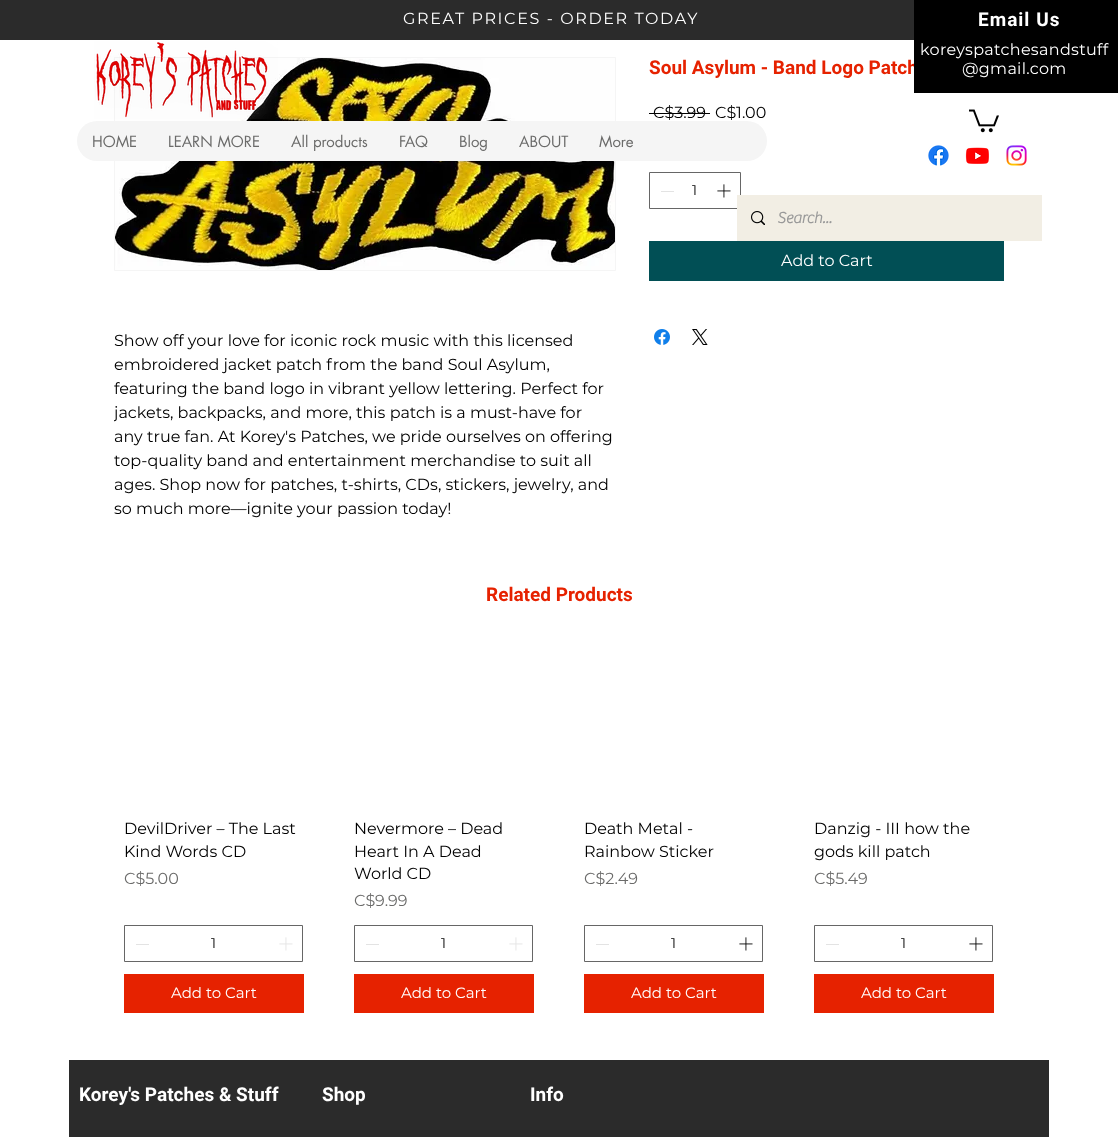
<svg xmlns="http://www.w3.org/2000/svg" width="1118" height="1137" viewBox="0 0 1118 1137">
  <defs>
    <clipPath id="clip1"><path d="M114 329h500v192H114z"/></clipPath>
  </defs>
  <rect width="100%" height="100%" fill="#fff"/>
  <path d="M0 0h914v40H0z" fill="#2b2b2b"/>
  <path d="M114.5 57.5h501v213H114.5z" fill="none" stroke="#f5f5f5"/>
  <image x="115" y="58" width="500" height="212" href="img/10.png"/>
  <image x="94" y="41" width="184" height="78" href="img/1.png"/>
  <image x="969" y="109" width="30" height="24" href="img/2.png"/>
  <rect x="77" y="121" width="690" height="40" rx="20" fill="#f5f5f5"/>
  <image x="928" y="145" width="21" height="21" href="img/3.png"/>
  <image x="965" y="147" width="24" height="17" href="img/4.png"/>
  <image x="1006" y="145" width="21" height="21" href="img/5.png"/>
  <path d="M649.5 172.5h91v36H649.5z" fill="none" stroke="#666"/>
  <path d="M737 195h305v46H737z" fill="#f2eee4"/>
  <image x="751" y="211" width="14" height="14" href="img/6.png"/>
  <path d="M649 113h61v1H649z" fill="#000"/>
  <path d="M661 191h13v1H661z" fill="#e3e3e3"/>
  <image x="717" y="184" width="14" height="14" href="img/7.png"/>
  <path d="M649 241h355v40H649z" fill="#014f55"/>
  <image x="654" y="329" width="16" height="16" href="img/8.png"/>
  <image x="692" y="329" width="16" height="16" href="img/9.png"/>
  <path d="M124.5 925.5h178v36H124.5z" fill="none" stroke="#666"/>
  <path d="M136 944h13v1H136z" fill="#e3e3e3"/>
  <image x="279" y="937" width="14" height="14" href="img/11.png"/>
  <path d="M124 974h180v39H124z" fill="#e62200"/>
  <path d="M354.5 925.5h178v36H354.5z" fill="none" stroke="#666"/>
  <path d="M366 944h13v1H366z" fill="#e3e3e3"/>
  <image x="509" y="937" width="14" height="14" href="img/11.png"/>
  <path d="M354 974h180v39H354z" fill="#e62200"/>
  <path d="M584.5 925.5h178v36H584.5z" fill="none" stroke="#666"/>
  <path d="M596 944h13v1H596z" fill="#e3e3e3"/>
  <image x="739" y="937" width="14" height="14" href="img/7.png"/>
  <path d="M584 974h180v39H584z" fill="#e62200"/>
  <path d="M814.5 925.5h178v36H814.5z" fill="none" stroke="#666"/>
  <path d="M826 944h13v1H826z" fill="#e3e3e3"/>
  <image x="969" y="937" width="14" height="14" href="img/7.png"/>
  <path d="M814 974h180v39H814z" fill="#e62200"/>
  <path d="M69 1060h980v77H69z" fill="#2b2b2b"/>
  <text x="403" y="24" font-family="Montserrat" font-size="16" letter-spacing="1.6" fill="#fff">GREAT PRICES - ORDER TODAY</text>
  <g font-family="futura" font-size="15" fill="#6b6b6a">
    <text x="92" y="147">HOME</text>
    <text x="168" y="147">LEARN MORE</text>
    <text x="291" y="147">All products</text>
    <text x="399" y="147">FAQ</text>
    <text x="459" y="147">Blog</text>
    <text x="519" y="147">ABOUT</text>
    <text x="599" y="147">More</text>
  </g>
  <text x="777" y="223" font-family="'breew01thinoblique'" font-size="16" font-weight="bold" fill="#999">Search...</text>
  <text x="649" y="74" font-family="Roboto" font-size="19" font-weight="bold" fill="#e62200">Soul Asylum - Band Logo Patch</text>
  <path d="M914 0h204v93H914z" fill="#000"/>
  <g font-family="Montserrat" font-size="16" letter-spacing="0.3" fill="#fff">
    <text x="962" y="74">@gmail.com</text>
    <text x="920" y="55">koreyspatchesandstuff</text>
  </g>
  <text x="978" y="26" font-family="Roboto" font-size="19" font-weight="bold" letter-spacing="1" fill="#fff">Email Us</text>
  <g font-family="Montserrat" font-size="16" fill="#000">
    <text x="653" y="118">C$3.99</text>
    <text x="715" y="118">C$1.00</text>
  </g>
  <text x="692" y="195" font-family="Montserrat" font-size="14" fill="#000">1</text>
  <text x="781" y="266" font-family="Montserrat" font-size="16" fill="#fff">Add to Cart</text>
  <g font-family="Montserrat" font-size="16" fill="#000">
    <text x="114" y="346">Show off your love for iconic rock music with this licensed</text>
    <text x="114" y="370">embroidered jacket patch from the band Soul Asylum,</text>
    <text x="114" y="394">featuring the band logo in vibrant yellow lettering. Perfect for</text>
  </g>
  <g clip-path="url(#clip1)">
    <text x="114" y="418" font-family="Montserrat" font-size="16" fill="#000">jackets, backpacks, and more, this patch is a must-have for</text>
  </g>
  <g font-family="Montserrat" font-size="16" fill="#000">
    <text x="114" y="442">any true fan. At Korey's Patches, we pride ourselves on offering</text>
    <text x="114" y="466">top-quality band and entertainment merchandise to suit all</text>
    <text x="114" y="490">ages. Shop now for patches, t-shirts, CDs, stickers, jewelry, and</text>
    <text x="114" y="514">so much more—ignite your passion today!</text>
  </g>
  <text x="486" y="601" font-family="Roboto" font-size="19" font-weight="bold" fill="#e62200">Related Products</text>
  <g font-family="Montserrat" font-size="16" fill="#000">
    <text x="124" y="834">DevilDriver – The Last</text>
    <text x="124" y="857">Kind Words CD</text>
  </g>
  <text x="124" y="884" font-family="Montserrat" font-size="16" fill="#6b6b6a">C$5.00</text>
  <text x="211" y="948" font-family="Montserrat" font-size="14" fill="#000">1</text>
  <text x="171" y="998" font-family="Montserrat" font-size="15" fill="#fff">Add to Cart</text>
  <g font-family="Montserrat" font-size="16" fill="#000">
    <text x="354" y="834">Nevermore – Dead</text>
    <text x="354" y="857">Heart In A Dead</text>
    <text x="354" y="879">World CD</text>
  </g>
  <text x="354" y="906" font-family="Montserrat" font-size="16" fill="#6b6b6a">C$9.99</text>
  <text x="441" y="948" font-family="Montserrat" font-size="14" fill="#000">1</text>
  <text x="401" y="998" font-family="Montserrat" font-size="15" fill="#fff">Add to Cart</text>
  <g font-family="Montserrat" font-size="16" fill="#000">
    <text x="584" y="834">Death Metal -</text>
    <text x="584" y="857">Rainbow Sticker</text>
  </g>
  <text x="584" y="884" font-family="Montserrat" font-size="16" fill="#6b6b6a">C$2.49</text>
  <text x="671" y="948" font-family="Montserrat" font-size="14" fill="#000">1</text>
  <text x="631" y="998" font-family="Montserrat" font-size="15" fill="#fff">Add to Cart</text>
  <g font-family="Montserrat" font-size="16" fill="#000">
    <text x="814" y="834">Danzig - III how the</text>
    <text x="814" y="857">gods kill patch</text>
  </g>
  <text x="814" y="884" font-family="Montserrat" font-size="16" fill="#6b6b6a">C$5.49</text>
  <text x="901" y="948" font-family="Montserrat" font-size="14" fill="#000">1</text>
  <text x="861" y="998" font-family="Montserrat" font-size="15" fill="#fff">Add to Cart</text>
  <g font-family="Roboto" font-size="19" font-weight="bold" fill="#fff">
    <text x="79" y="1101">Korey's Patches &amp; Stuff</text>
    <text x="322" y="1101">Shop</text>
    <text x="530" y="1101">Info</text>
  </g>
</svg>
